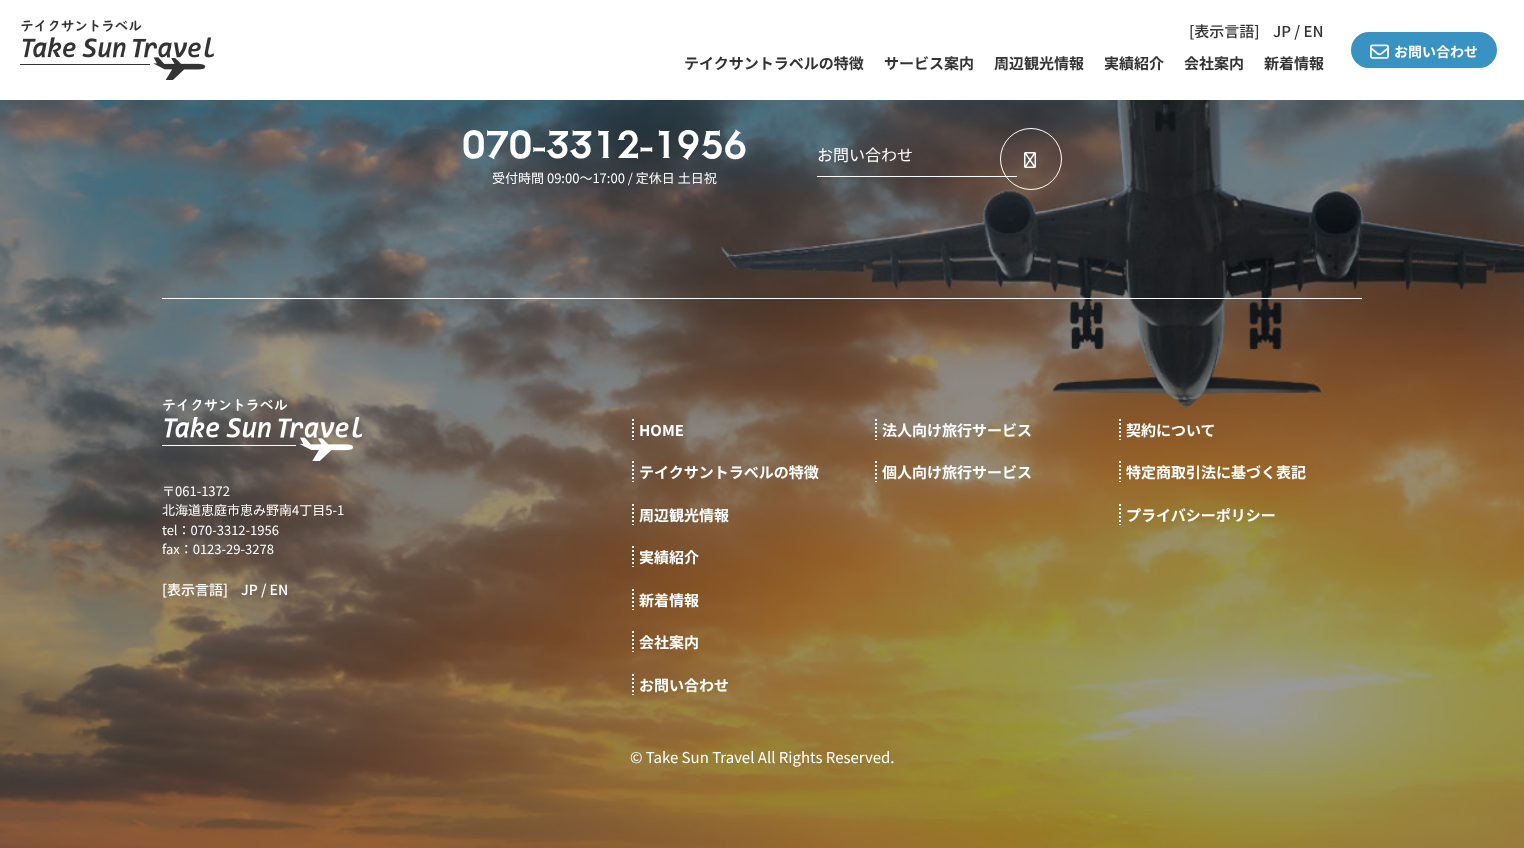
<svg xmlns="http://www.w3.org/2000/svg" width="1524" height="848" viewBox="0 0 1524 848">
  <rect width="100%" height="100%" fill="#fff"/>
  <image x="20" y="20" width="194" height="60" href="img/1.png"/>
  <rect x="1350" y="31" width="148" height="38" rx="19" fill="#3993c2" stroke="#fff" stroke-width="2"/>
  <image x="1370" y="44" width="19" height="15" href="img/2.png"/>
  <image x="0" y="100" width="1524" height="748" href="img/3.png"/>
  <circle cx="1031" cy="159" r="30.5" fill="none" stroke="#fff"/>
  <path d="M817 176h200v1H817z" fill="#fff"/>
  <image x="1024" y="152" width="12" height="16" href="img/4.png"/>
  <path d="M162 298h1200v1H162z" fill="#fff"/>
  <image x="162" y="399" width="200" height="62" href="img/5.png"/>
  <path d="M633 419V440" fill="none" stroke="#fff" stroke-width="2" stroke-dasharray="2 2"/>
  <path d="M633 461V482" fill="none" stroke="#fff" stroke-width="2" stroke-dasharray="2 2"/>
  <path d="M633 504V525" fill="none" stroke="#fff" stroke-width="2" stroke-dasharray="2 2"/>
  <path d="M633 546V567" fill="none" stroke="#fff" stroke-width="2" stroke-dasharray="2 2"/>
  <path d="M633 589V610" fill="none" stroke="#fff" stroke-width="2" stroke-dasharray="2 2"/>
  <path d="M633 631V652" fill="none" stroke="#fff" stroke-width="2" stroke-dasharray="2 2"/>
  <path d="M633 674V695" fill="none" stroke="#fff" stroke-width="2" stroke-dasharray="2 2"/>
  <path d="M876 419V440" fill="none" stroke="#fff" stroke-width="2" stroke-dasharray="2 2"/>
  <path d="M876 461V482" fill="none" stroke="#fff" stroke-width="2" stroke-dasharray="2 2"/>
  <path d="M1120 419V440" fill="none" stroke="#fff" stroke-width="2" stroke-dasharray="2 2"/>
  <path d="M1120 461V482" fill="none" stroke="#fff" stroke-width="2" stroke-dasharray="2 2"/>
  <path d="M1120 504V525" fill="none" stroke="#fff" stroke-width="2" stroke-dasharray="2 2"/>
  <g font-family="Noto Sans JP" font-size="15" font-weight="500" fill="#333">
    <text x="1189" y="37">[表示言語]</text>
    <text x="1273" y="37">JP / EN</text>
  </g>
  <g font-family="Noto Sans JP" font-size="15" font-weight="bold" fill="#333">
    <text x="684" y="69">テイクサントラベルの特徴</text>
    <text x="884" y="69">サービス案内</text>
    <text x="994" y="69">周辺観光情報</text>
    <text x="1104" y="69">実績紹介</text>
    <text x="1184" y="69">会社案内</text>
    <text x="1264" y="69">新着情報</text>
  </g>
  <text x="1394" y="57" font-family="Noto Sans JP" font-size="14" font-weight="bold" fill="#fff">お問い合わせ</text>
  <text x="462" y="158" font-family="Aoboshi One" font-size="36" fill="#fff">070-3312-1956</text>
  <text x="492" y="183" font-family="Noto Sans JP" font-size="13" fill="#fff">受付時間 09:00～17:00 / 定休日 土日祝</text>
  <text x="817" y="161" font-family="Noto Sans JP" font-size="16" fill="#fff">お問い合わせ</text>
  <g font-family="Noto Sans JP" font-size="13" fill="#fff">
    <text x="162" y="496">〒061-1372</text>
    <text x="162" y="515">北海道恵庭市恵み野南4丁目5-1</text>
    <text x="162" y="535">tel：070-3312-1956</text>
    <text x="162" y="554">fax：0123-29-3278</text>
  </g>
  <g font-family="Noto Sans JP" font-size="14" font-weight="500" fill="#fff">
    <text x="162" y="595">[表示言語]</text>
    <text x="241" y="595">JP / EN</text>
  </g>
  <g font-family="Noto Sans JP" font-size="15" font-weight="bold" fill="#fff">
    <text x="639" y="436">HOME</text>
    <text x="639" y="478">テイクサントラベルの特徴</text>
    <text x="639" y="521">周辺観光情報</text>
    <text x="639" y="563">実績紹介</text>
    <text x="639" y="606">新着情報</text>
    <text x="639" y="648">会社案内</text>
    <text x="639" y="691">お問い合わせ</text>
    <text x="882" y="436">法人向け旅行サービス</text>
    <text x="882" y="478">個人向け旅行サービス</text>
    <text x="1126" y="436">契約について</text>
    <text x="1126" y="478">特定商取引法に基づく表記</text>
    <text x="1126" y="521">プライバシーポリシー</text>
  </g>
  <text x="630" y="763" font-family="Noto Sans JP" font-size="15" fill="#fff">© Take Sun Travel All Rights Reserved.</text>
</svg>
